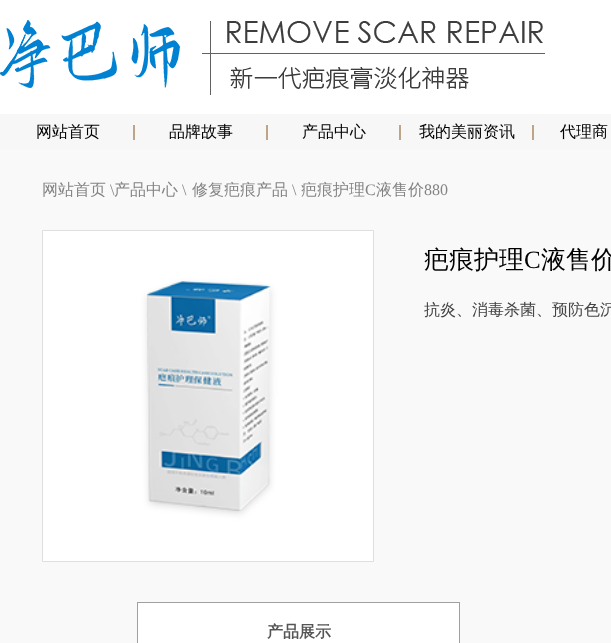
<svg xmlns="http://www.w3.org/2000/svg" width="611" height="643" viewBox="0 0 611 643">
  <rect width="100%" height="100%" fill="#fff"/>
  <image x="0" y="20" width="545" height="75" href="img/1.png"/>
  <path d="M0 114h611v36H0z" fill="#f7f7f7"/>
  <path d="M133 125h2v15H133z" fill="#bda589"/>
  <path d="M266 125h2v15H266z" fill="#bda589"/>
  <path d="M399 125h2v15H399z" fill="#bda589"/>
  <path d="M532 125h2v15H532z" fill="#bda589"/>
  <path d="M0 150h611v493H0z" fill="#f9f9f9"/>
  <path d="M42.5 230.5h331v331H42.5z" fill="none" stroke="#dfdfdf"/>
  <image x="43" y="231" width="330" height="330" href="img/2.png"/>
  <path d="M138 603h321v40H138z" fill="#fff"/>
  <path d="M137 602h323v1H137z" fill="#a0a0a0"/>
  <path d="M459 602h1v41H459z" fill="#a0a0a0"/>
  <path d="M137 602h1v41H137z" fill="#a0a0a0"/>
  <g font-family="WenQuanYi Zen Hei" font-size="16" font-weight="500" fill="#000">
    <text x="36" y="137">网站首页</text>
    <text x="169" y="137">品牌故事</text>
    <text x="302" y="137">产品中心</text>
    <text x="419" y="137">我的美丽资讯</text>
    <text x="560" y="137">代理商</text>
  </g>
  <text x="42" y="195" font-family="WenQuanYi Zen Hei" font-size="16" font-weight="500" fill="#848484">网站首页</text>
  <text x="110" y="195" font-family="Liberation Serif" font-size="16" fill="#848484">\</text>
  <text x="114" y="195" font-family="WenQuanYi Zen Hei" font-size="16" font-weight="500" fill="#848484">产品中心</text>
  <text x="182" y="195" font-family="Liberation Serif" font-size="16" fill="#848484">\</text>
  <text x="192" y="195" font-family="WenQuanYi Zen Hei" font-size="16" font-weight="500" fill="#848484">修复疤痕产品</text>
  <text x="292" y="195" font-family="Liberation Serif" font-size="16" fill="#848484">\</text>
  <text x="301" y="195" font-family="WenQuanYi Zen Hei" font-size="16" font-weight="500" fill="#848484">疤痕护理</text>
  <text x="365" y="195" font-family="Liberation Serif" font-size="16" fill="#848484">C</text>
  <text x="376" y="195" font-family="WenQuanYi Zen Hei" font-size="16" font-weight="500" fill="#848484">液售价</text>
  <text x="424" y="195" font-family="Liberation Serif" font-size="16" fill="#848484">880</text>
  <text x="424" y="268" font-family="WenQuanYi Zen Hei" font-size="25" font-weight="500" fill="#000">疤痕护理</text>
  <text x="524" y="268" font-family="Liberation Serif" font-size="25" fill="#000">C</text>
  <text x="541" y="268" font-family="WenQuanYi Zen Hei" font-size="25" font-weight="500" fill="#000">液售价</text>
  <text x="424" y="315" font-family="WenQuanYi Zen Hei" font-size="16" font-weight="500" fill="#444">抗炎、消毒杀菌、预防色沉</text>
  <text x="267" y="637" font-family="WenQuanYi Zen Hei" font-size="16" font-weight="bold" fill="#555">产品展示</text>
</svg>
